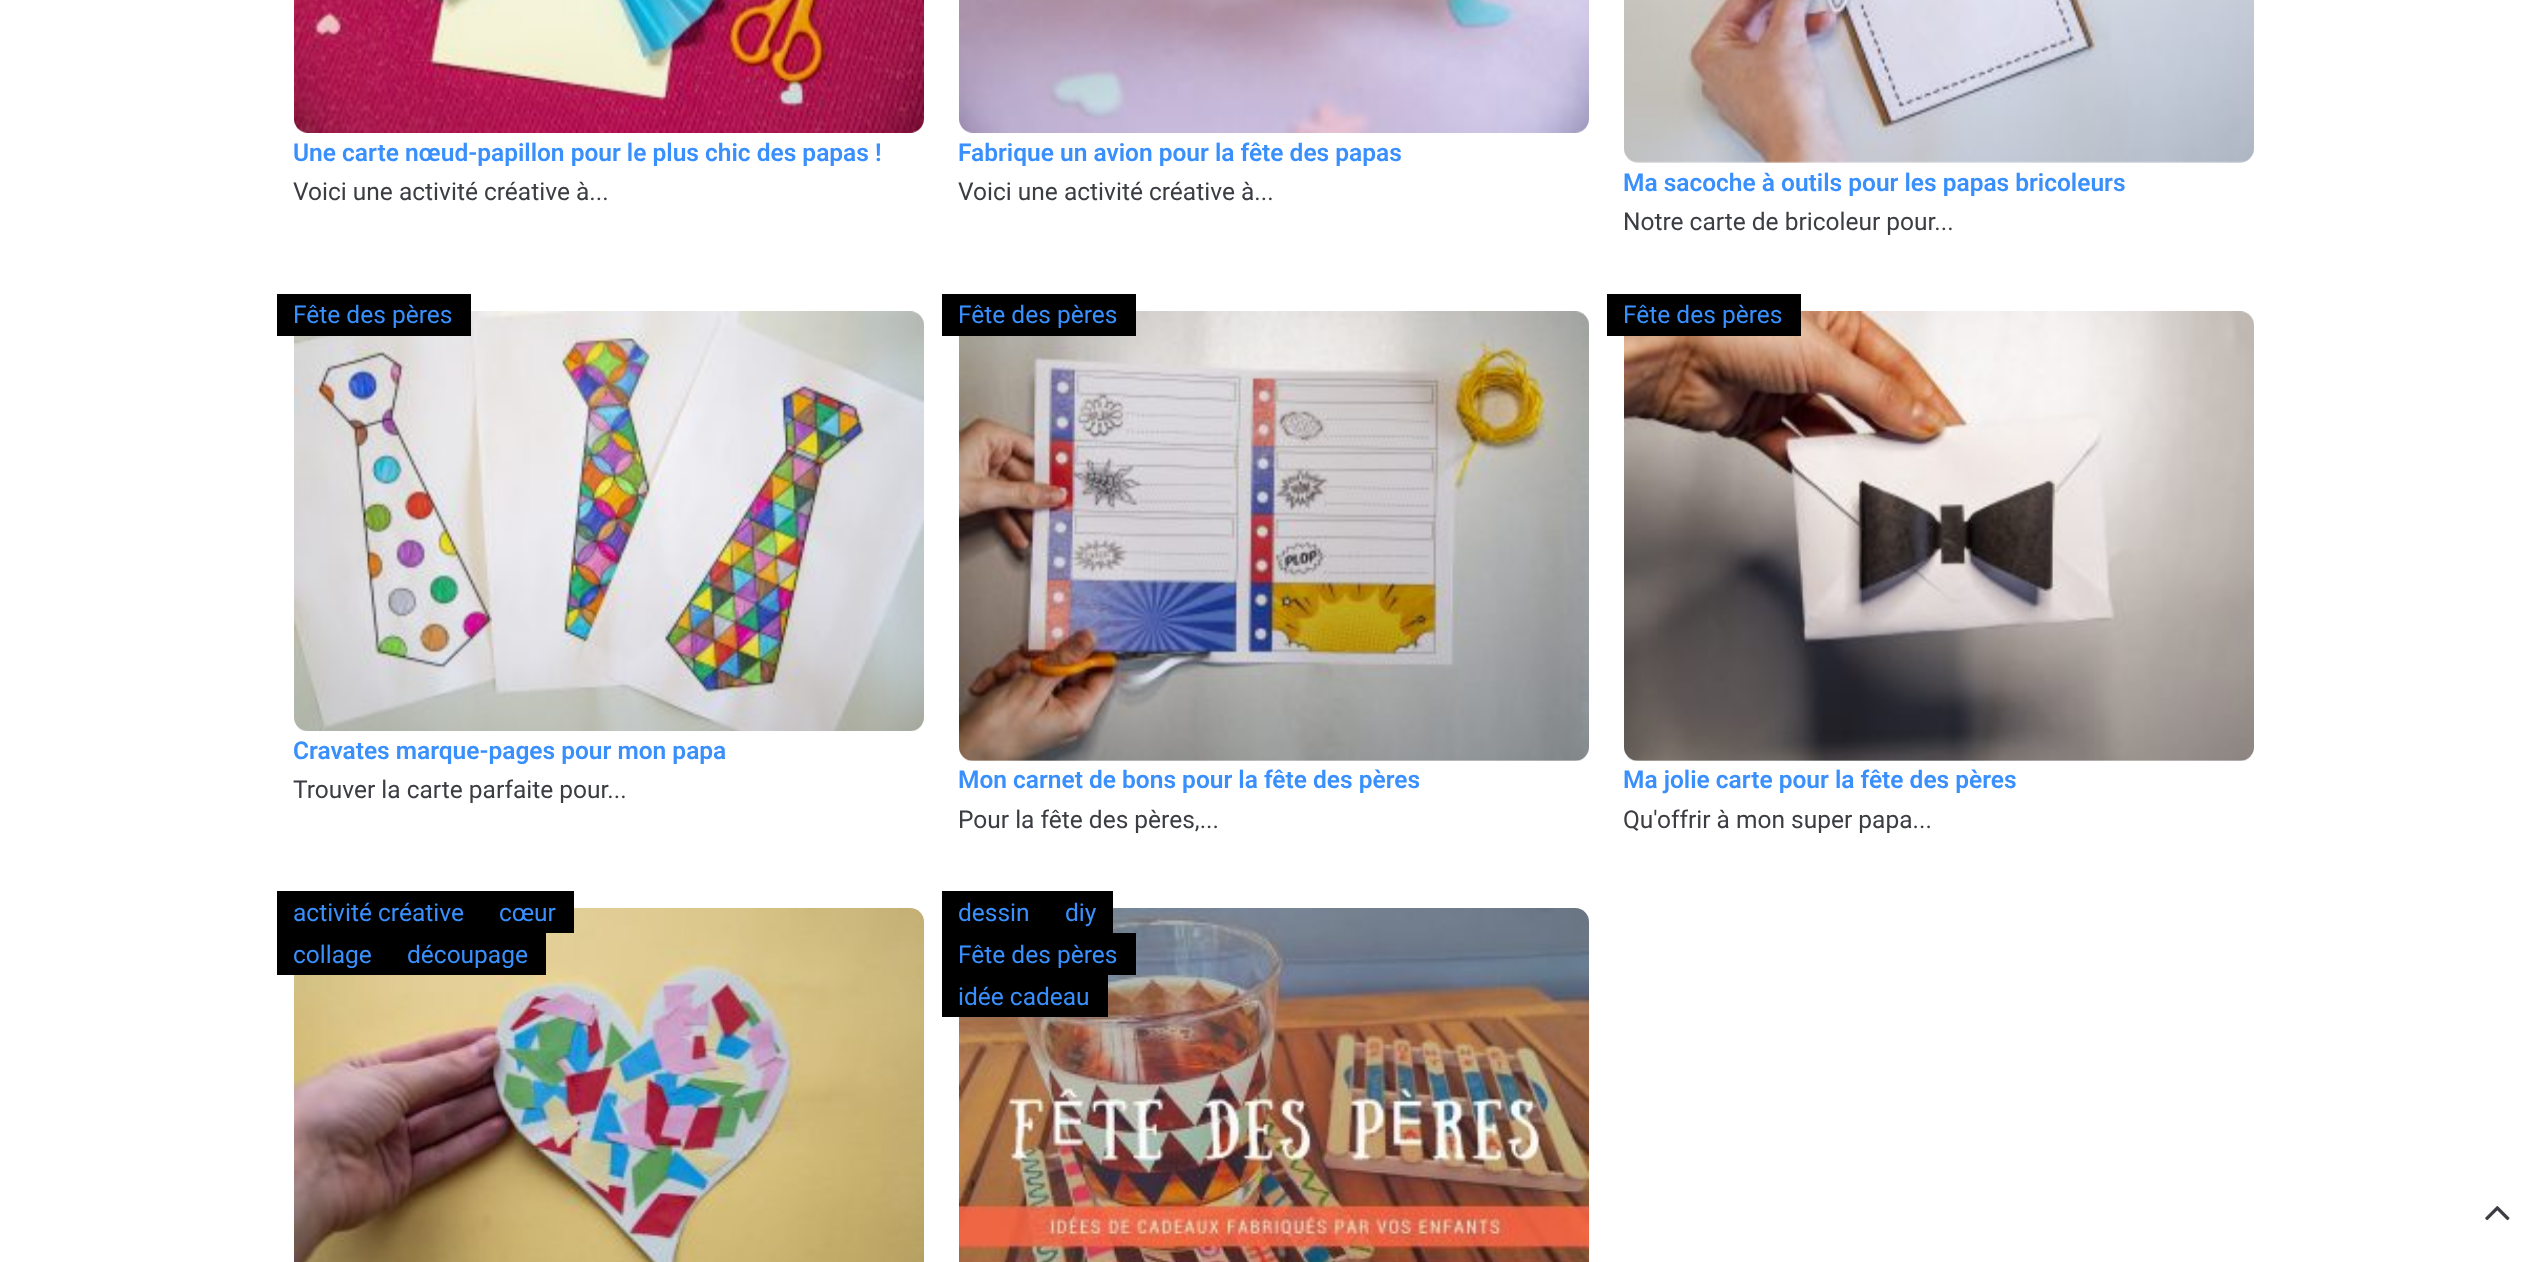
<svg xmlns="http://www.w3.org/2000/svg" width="2545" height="1262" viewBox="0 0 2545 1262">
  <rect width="100%" height="100%" fill="#fff"/>
  <image x="294" y="0" width="630" height="133" href="img/1.png"/>
  <image x="959" y="0" width="630" height="133" href="img/2.png"/>
  <image x="1624" y="0" width="630" height="163" href="img/3.png"/>
  <image x="294" y="311" width="630" height="420" href="img/4.png"/>
  <path d="M277 294h194v42H277z" fill="#000"/>
  <image x="959" y="311" width="630" height="450" href="img/5.png"/>
  <path d="M942 294h194v42H942z" fill="#000"/>
  <image x="1624" y="311" width="630" height="450" href="img/6.png"/>
  <path d="M1607 294h194v42H1607z" fill="#000"/>
  <image x="294" y="908" width="630" height="354" href="img/7.png"/>
  <path d="M277 891h297v42H277z" fill="#000"/>
  <path d="M277 933h269v42H277z" fill="#000"/>
  <image x="959" y="908" width="630" height="354" href="img/8.png"/>
  <path d="M942 891h171v42H942z" fill="#000"/>
  <path d="M942 933h194v42H942z" fill="#000"/>
  <path d="M942 975h166v42H942z" fill="#000"/>
  <image x="2485" y="1206" width="25" height="15" href="img/9.png"/>
  <text x="293" y="161" font-family="Roboto" font-size="24.5" font-weight="600" fill="#398ffc">Une carte nœud-papillon pour le plus chic des papas !</text>
  <text x="293" y="200" font-family="Roboto" font-size="24.5" fill="#3b3d42">Voici une activité créative à...</text>
  <text x="958" y="161" font-family="Roboto" font-size="24.5" font-weight="600" fill="#398ffc">Fabrique un avion pour la fête des papas</text>
  <text x="958" y="200" font-family="Roboto" font-size="24.5" fill="#3b3d42">Voici une activité créative à...</text>
  <text x="1623" y="191" font-family="Roboto" font-size="24.5" font-weight="600" fill="#398ffc">Ma sacoche à outils pour les papas bricoleurs</text>
  <text x="1623" y="230" font-family="Roboto" font-size="24.5" fill="#3b3d42">Notre carte de bricoleur pour...</text>
  <text x="293" y="323" font-family="Roboto" font-size="24.5" fill="#398ffc">Fête des pères</text>
  <text x="293" y="759" font-family="Roboto" font-size="24.5" font-weight="600" fill="#398ffc">Cravates marque-pages pour mon papa</text>
  <text x="293" y="798" font-family="Roboto" font-size="24.5" fill="#3b3d42">Trouver la carte parfaite pour...</text>
  <text x="958" y="323" font-family="Roboto" font-size="24.5" fill="#398ffc">Fête des pères</text>
  <text x="958" y="788" font-family="Roboto" font-size="24.5" font-weight="600" fill="#398ffc">Mon carnet de bons pour la fête des pères</text>
  <text x="958" y="828" font-family="Roboto" font-size="24.5" fill="#3b3d42">Pour la fête des pères,...</text>
  <text x="1623" y="323" font-family="Roboto" font-size="24.5" fill="#398ffc">Fête des pères</text>
  <text x="1623" y="788" font-family="Roboto" font-size="24.5" font-weight="600" fill="#398ffc">Ma jolie carte pour la fête des pères</text>
  <text x="1623" y="828" font-family="Roboto" font-size="24.5" fill="#3b3d42">Qu'offrir à mon super papa...</text>
  <g font-family="Roboto" font-size="24.5" fill="#398ffc">
    <text x="293" y="921">activité créative</text>
    <text x="499" y="921">cœur</text>
    <text x="293" y="963">collage</text>
    <text x="407" y="963">découpage</text>
    <text x="958" y="921">dessin</text>
    <text x="1065" y="921">diy</text>
    <text x="958" y="963">Fête des pères</text>
    <text x="958" y="1005">idée cadeau</text>
  </g>
</svg>
